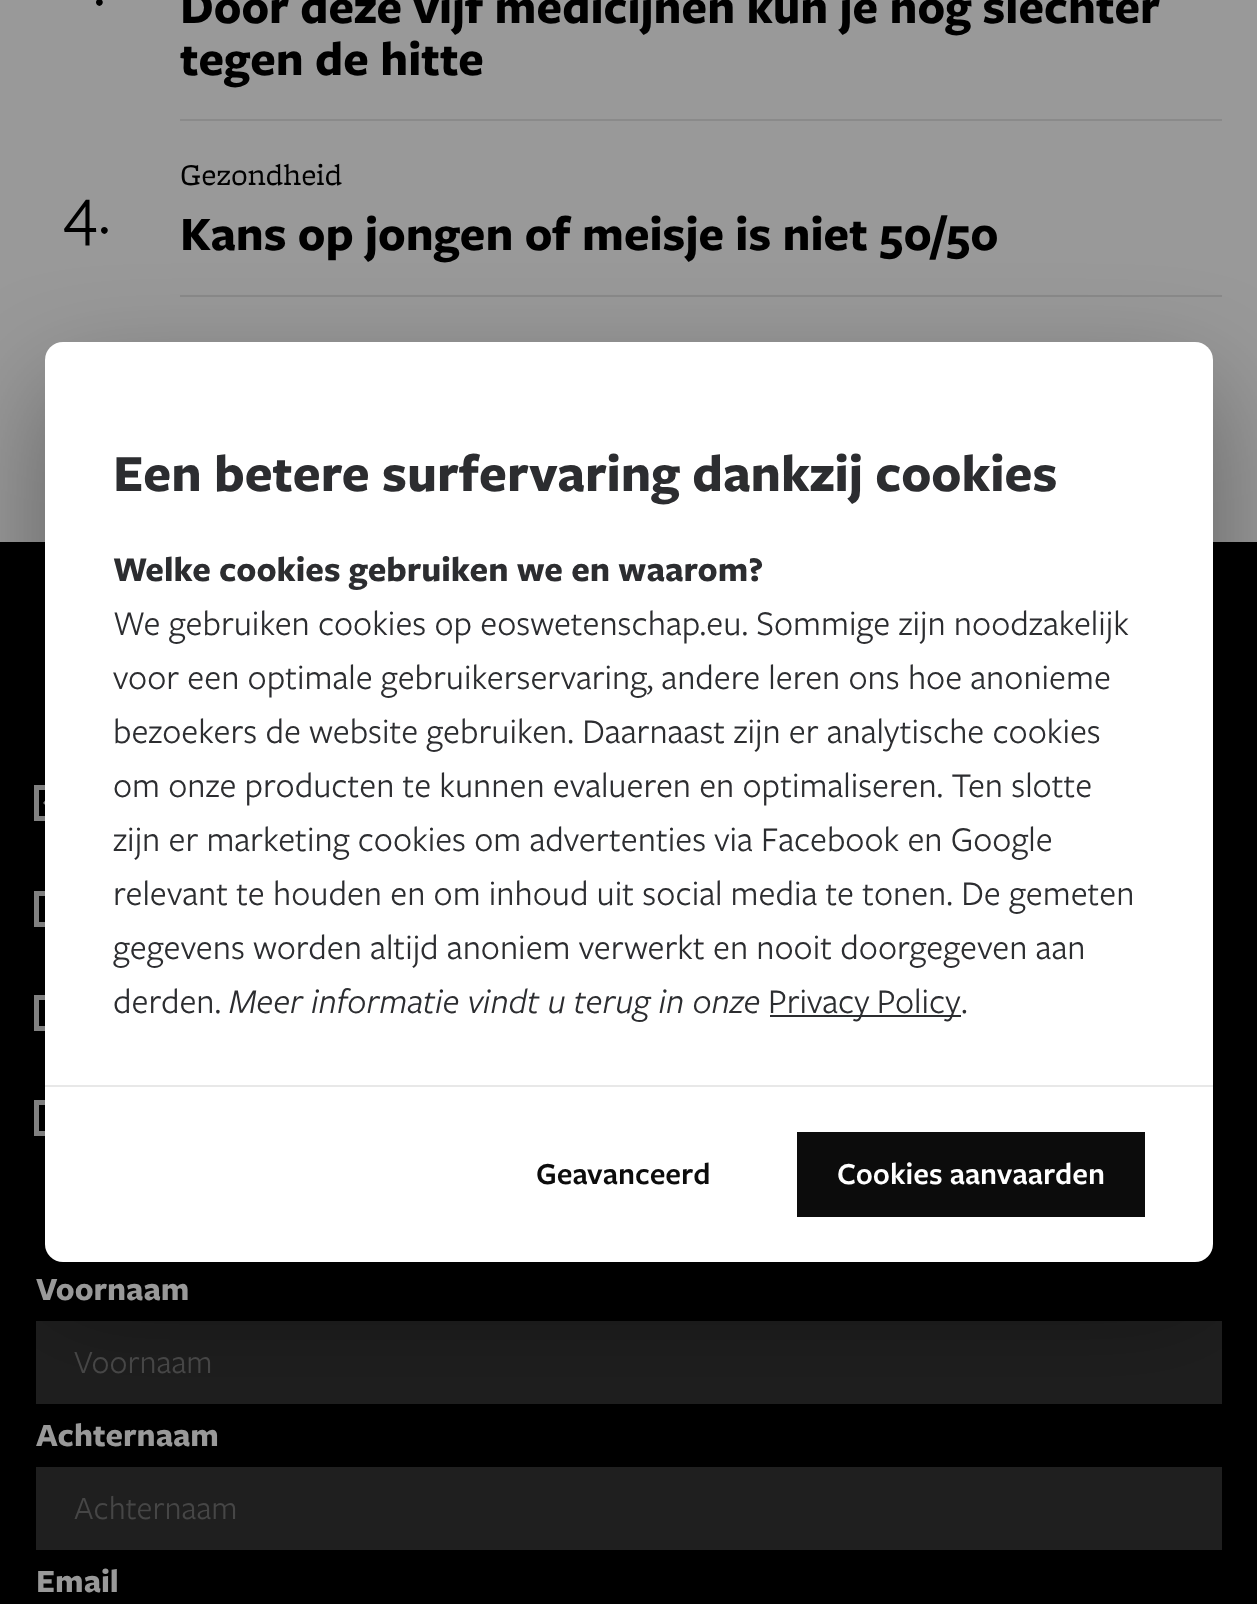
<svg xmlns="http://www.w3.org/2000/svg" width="1257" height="1604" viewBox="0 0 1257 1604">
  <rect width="100%" height="100%" fill="#999"/>
  <path d="M180 119h1042v2H180z" fill="#8a8a8a"/>
  <path d="M180 295h1042v2H180z" fill="#8a8a8a"/>
  <path d="M0 542h1257v1062H0z" fill="#000"/>
  <path d="M36.5 787.5h31v31H36.5z" fill="none" stroke="#999" stroke-width="5"/>
  <path d="M43 803L49.5 809L52.5 806L46 799.5Z" fill="#999"/>
  <path d="M36.5 893.5h31v31H36.5z" fill="none" stroke="#999" stroke-width="5"/>
  <path d="M36.5 997.5h31v31H36.5z" fill="none" stroke="#999" stroke-width="5"/>
  <path d="M36.5 1102.5h31v31H36.5z" fill="none" stroke="#999" stroke-width="5"/>
  <path d="M36 1321h1186v83H36z" fill="#1f1f1f"/>
  <path d="M36 1467h1186v83H36z" fill="#1f1f1f"/>
  <rect x="45" y="387" width="1168" height="920" rx="18" fill="#00000059" filter="blur(56px)"/>
  <rect x="45" y="342" width="1168" height="920" rx="18" fill="#fff"/>
  <path d="M770 1015h191v2H770z" fill="#2c2d30"/>
  <path d="M45 1085h1168v2H45z" fill="#e8e8e8"/>
  <path d="M797 1132h348v85H797z" fill="#0c0c0c"/>
  <text x="93" y="5" font-family="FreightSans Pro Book" font-size="68" fill="#000">.</text>
  <g font-family="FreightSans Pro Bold" font-size="49.5" font-weight="bold" fill="#000">
    <text x="180" y="23">Door deze vijf medicijnen kun je nog slechter</text>
    <text x="180" y="75">tegen de hitte</text>
  </g>
  <g font-family="FreightSans Pro Book" font-size="68" fill="#000">
    <text x="63" y="233">4</text>
    <text x="98" y="233">.</text>
  </g>
  <text x="180" y="185" font-family="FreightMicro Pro" font-size="31.5" fill="#000">Gezondheid</text>
  <text x="180" y="250" font-family="FreightSans Pro Bold" font-size="49.5" font-weight="bold" fill="#000">Kans op jongen of meisje is niet 50/50</text>
  <text x="36" y="1300" font-family="FreightSans Pro Bold" font-size="33.75" font-weight="bold" fill="#999">Voornaam</text>
  <text x="74" y="1373" font-family="FreightSans Pro Book" font-size="33.75" fill="#464646">Voornaam</text>
  <text x="36" y="1446" font-family="FreightSans Pro Bold" font-size="33.75" font-weight="bold" fill="#999">Achternaam</text>
  <text x="74" y="1519" font-family="FreightSans Pro Book" font-size="33.75" fill="#464646">Achternaam</text>
  <text x="36" y="1592" font-family="FreightSans Pro Bold" font-size="33.75" font-weight="bold" fill="#999">Email</text>
  <text x="113" y="491" font-family="FreightSans Pro Bold" font-size="54" font-weight="bold" fill="#2c2d30">Een betere surfervaring dankzij cookies</text>
  <text x="113" y="581" font-family="FreightSans Pro Bold" font-size="36" font-weight="bold" fill="#2c2d30">Welke cookies gebruiken we en waarom?</text>
  <g font-family="FreightSans Pro Book" font-size="36" fill="#2c2d30">
    <text x="113" y="635">We gebruiken cookies op eoswetenschap.eu. Sommige zijn noodzakelijk</text>
    <text x="113" y="689">voor een optimale gebruikerservaring, andere leren ons hoe anonieme</text>
    <text x="113" y="743">bezoekers de website gebruiken. Daarnaast zijn er analytische cookies</text>
    <text x="113" y="797">om onze producten te kunnen evalueren en optimaliseren. Ten slotte</text>
    <text x="113" y="851">zijn er marketing cookies om advertenties via Facebook en Google</text>
    <text x="113" y="905">relevant te houden en om inhoud uit social media te tonen. De gemeten</text>
    <text x="113" y="959">gegevens worden altijd anoniem verwerkt en nooit doorgegeven aan</text>
    <text x="113" y="1013">derden.</text>
  </g>
  <text x="229" y="1013" font-family="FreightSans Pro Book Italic" font-size="36" font-style="italic" fill="#2c2d30">Meer informatie vindt u terug in onze</text>
  <g font-family="FreightSans Pro Book" font-size="36" fill="#2c2d30">
    <text x="768" y="1013" word-spacing="-1">Privacy Policy</text>
    <text x="961" y="1013">.</text>
  </g>
  <text x="536" y="1184" font-family="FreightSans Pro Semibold" font-size="31.5" font-weight="600" fill="#0c0c0c">Geavanceerd</text>
  <text x="837" y="1184" font-family="FreightSans Pro Semibold" font-size="31.5" font-weight="600" fill="#fff">Cookies aanvaarden</text>
</svg>
